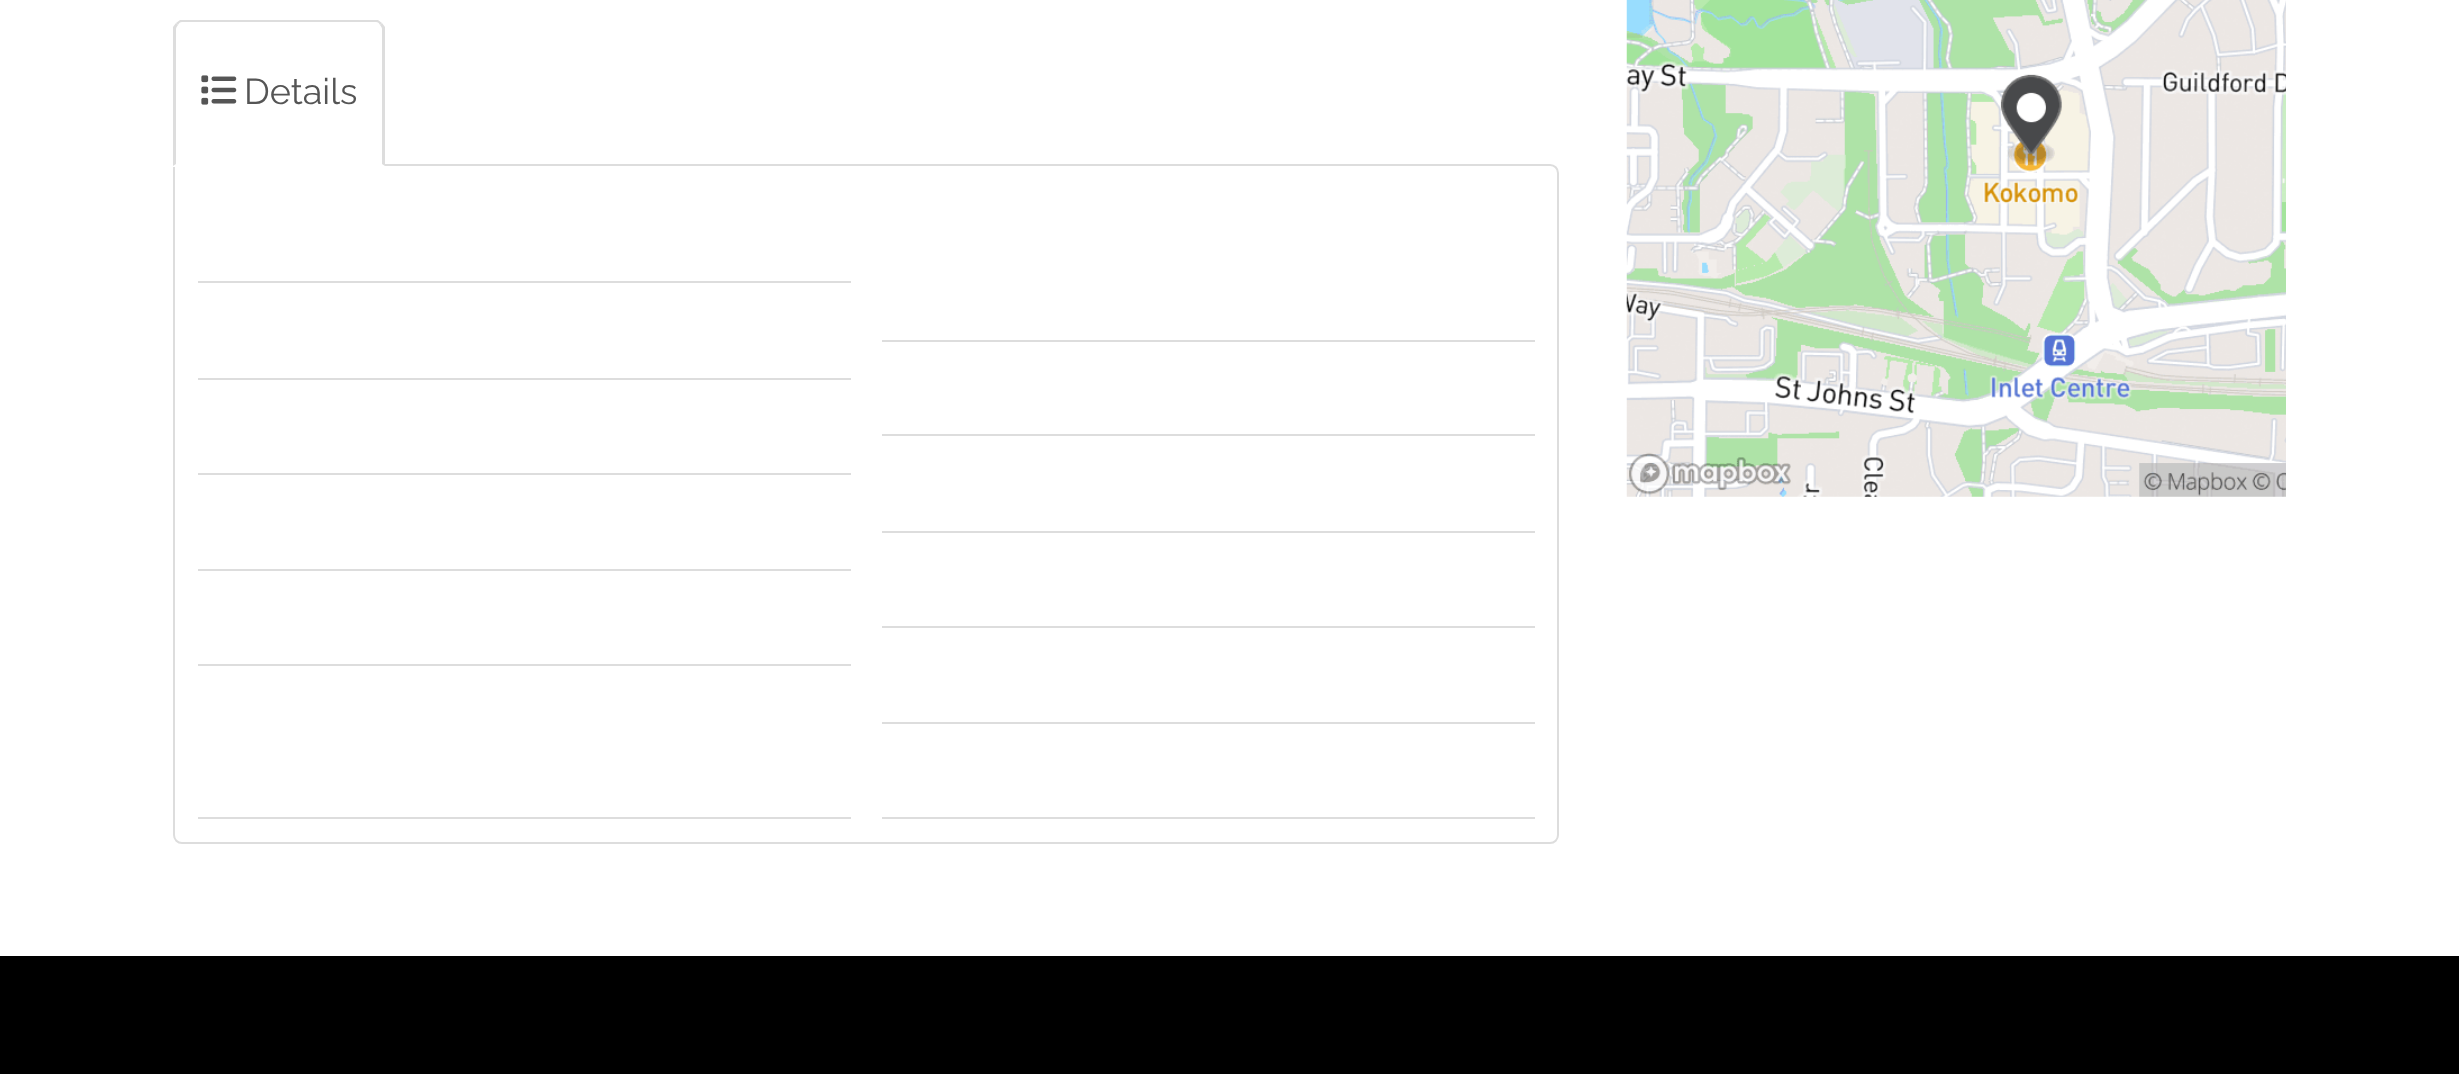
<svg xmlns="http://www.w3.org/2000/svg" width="2459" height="1074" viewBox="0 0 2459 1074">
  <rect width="100%" height="100%" fill="#fff"/>
  <path d="M174 165H1550C1554.5 165 1558 168.5 1558 173V835C1558 839.5 1554.5 843 1550 843H182C177.5 843 174 839.5 174 835Z" fill="none" stroke="#ddd" stroke-width="2"/>
  <path d="M182 20H376C381 20 385 24 385 29V167H173V29C173 24 177 20 182 20Z" fill="#fff"/>
  <path d="M182 22C180 22 179 23 178 25L176 23L180 20H378L382 23L380 25C379 23 378 22 376 22Z" fill="#ddd"/>
  <path d="M385 166L382 164V29C382 28 381 26 380 25L382 23L385 27Z" fill="#ddd"/>
  <path d="M173 27L176 23L178 25C177 26 176 28 176 29V164L173 166Z" fill="#ddd"/>
  <image x="201" y="75" width="36" height="30" href="img/1.png"/>
  <path d="M198 281h653v2H198z" fill="#ddd"/>
  <path d="M882 340h653v2H882z" fill="#ddd"/>
  <path d="M198 378h653v2H198z" fill="#ddd"/>
  <path d="M882 434h653v2H882z" fill="#ddd"/>
  <path d="M198 473h653v2H198z" fill="#ddd"/>
  <path d="M882 531h653v2H882z" fill="#ddd"/>
  <path d="M198 569h653v2H198z" fill="#ddd"/>
  <path d="M882 626h653v2H882z" fill="#ddd"/>
  <path d="M198 664h653v2H198z" fill="#ddd"/>
  <path d="M882 722h653v2H882z" fill="#ddd"/>
  <path d="M198 817h653v2H198z" fill="#ddd"/>
  <path d="M882 817h653v2H882z" fill="#ddd"/>
  <image x="1626" y="0" width="660" height="497" href="img/2.png"/>
  <path d="M0 956h2459v118H0z" fill="#000"/>
  <text x="244" y="104" font-family="Raleway" font-size="36" fill="#555">Details</text>
</svg>
